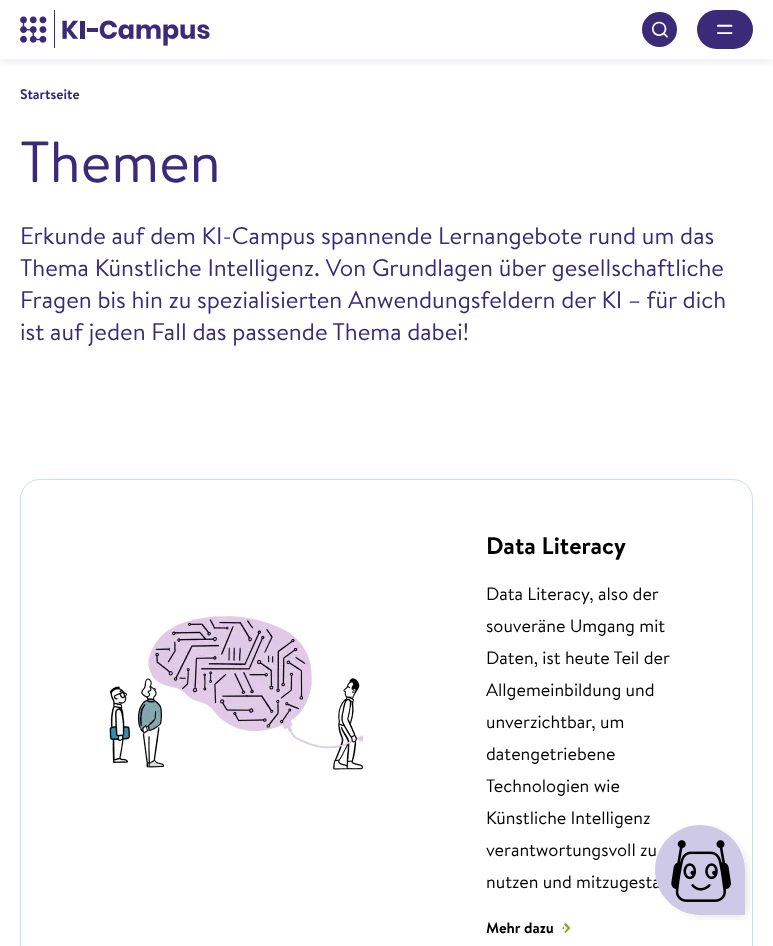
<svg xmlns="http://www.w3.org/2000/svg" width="773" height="946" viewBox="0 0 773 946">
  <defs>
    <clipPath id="clip1"><path d="M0 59h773v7H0z"/></clipPath>
  </defs>
  <rect width="100%" height="100%" fill="#fff"/>
  <g clip-path="url(#clip1)">
    <path d="M0 3h773v59H0z" fill="#3a2a781a" filter="blur(5px)"/>
  </g>
  <image x="20" y="10" width="190" height="38" href="img/1.png"/>
  <circle cx="659.5" cy="29.5" r="17.5" fill="#3a2a78"/>
  <rect x="697" y="10" width="56" height="39" rx="19.5" fill="#3a2a78"/>
  <rect x="20.5" y="479.5" width="732" height="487" rx="19.5" fill="none" stroke="#c2e3f0"/>
  <image x="109" y="616" width="255" height="154" href="img/2.png"/>
  <path d="M564.5 923.5C563.5 925 567 927.5 567.5 928L565.5 930.5C564 931.5 564 933.5 565.5 933L568 930.5C570.5 928.5 571 928.5 568.5 926C568 925.5 566 922.5 564.5 923.5ZM563.5 927C562 927 562 929 563.5 929C564.5 929 564.5 927 563.5 927Z" fill="#71b214" fill-rule="evenodd"/>
  <g font-family="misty" font-size="18" fill="#fff">
    <text x="652" y="35">🔍︎︎</text>
    <text x="717" y="35">═</text>
  </g>
  <text x="20" y="99" font-family="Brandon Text" font-size="14" font-weight="bold" fill="#3a2a78">Startseite</text>
  <text x="20" y="182" font-family="Brandon Text" font-size="58" fill="#3a2a78">Themen</text>
  <g font-family="Brandon Text" font-size="24" fill="#3a2a78">
    <text x="20" y="244">Erkunde auf dem KI-Campus spannende Lernangebote rund um das</text>
    <text x="20" y="276">Thema Künstliche Intelligenz. Von Grundlagen über gesellschaftliche</text>
    <text x="20" y="308">Fragen bis hin zu spezialisierten Anwendungsfeldern der KI – für dich</text>
    <text x="20" y="340">ist auf jeden Fall das passende Thema dabei!</text>
  </g>
  <text x="486" y="554" font-family="Brandon Text" font-size="24" font-weight="bold" fill="#000">Data Literacy</text>
  <g font-family="Brandon Text" font-size="18" fill="#000">
    <text x="486" y="600">Data Literacy, also der</text>
    <text x="486" y="632">souveräne Umgang mit</text>
    <text x="486" y="664">Daten, ist heute Teil der</text>
    <text x="486" y="696">Allgemeinbildung und</text>
    <text x="486" y="728">unverzichtbar, um</text>
    <text x="486" y="760">datengetriebene</text>
    <text x="486" y="792">Technologien wie</text>
    <text x="486" y="824">Künstliche Intelligenz</text>
    <text x="486" y="856">verantwortungsvoll zu</text>
    <text x="486" y="888">nutzen und mitzugesta</text>
  </g>
  <text x="486" y="933" font-family="Brandon Text" font-size="15" font-weight="bold" fill="#000">Mehr dazu</text>
  <image x="655" y="825" width="96" height="95" href="img/3.png"/>
  <image x="671" y="840" width="60" height="62" href="img/4.png"/>
</svg>
